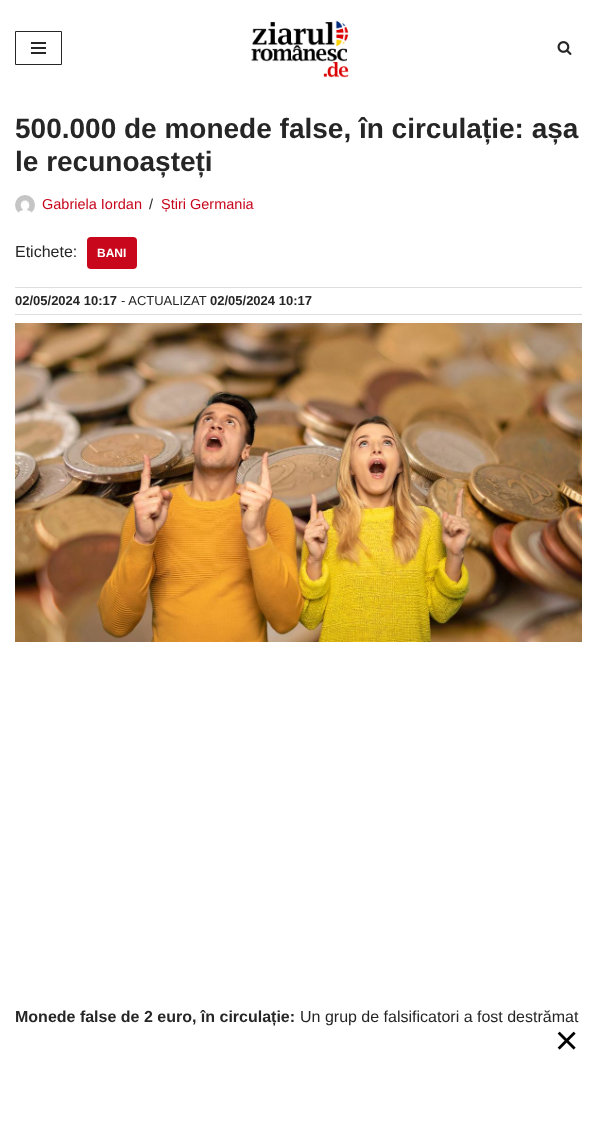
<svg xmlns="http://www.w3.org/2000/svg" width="597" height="1131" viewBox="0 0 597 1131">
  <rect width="100%" height="100%" fill="#fff"/>
  <path d="M15.5 31.5h46v33H15.5z" fill="none" stroke="#272626"/>
  <path d="M31 42h15v2H31z" fill="#272626"/>
  <path d="M31 47h15v2H31z" fill="#272626"/>
  <path d="M31 52h15v2H31z" fill="#272626"/>
  <image x="251" y="20" width="98" height="58" href="img/1.png"/>
  <image x="557" y="41" width="15" height="14" href="img/2.png"/>
  <image x="15" y="195" width="20" height="18" href="img/3.png"/>
  <rect x="87" y="237" width="50" height="32" rx="4" fill="#c8071d"/>
  <path d="M15 287h567v1H15z" fill="#dedede"/>
  <path d="M15 314h567v1H15z" fill="#dedede"/>
  <image x="15" y="323" width="567" height="319" href="img/4.png"/>
  <image x="557" y="1031" width="19" height="19" href="img/5.png"/>
  <g font-family="Liberation Sans" font-size="28" font-weight="bold" fill="#272626">
    <text x="15" y="138">500.000 de monede false, în circulație: așa</text>
    <text x="15" y="171">le recunoașteți</text>
  </g>
  <text x="42" y="209" font-family="Liberation Sans" font-size="14.5" fill="#c8071d">Gabriela Iordan</text>
  <text x="149" y="209" font-family="Liberation Sans" font-size="14.5" fill="#272626">/</text>
  <text x="161" y="209" font-family="Liberation Sans" font-size="14.5" fill="#c8071d">Știri Germania</text>
  <text x="15" y="257" font-family="Liberation Sans" font-size="16" fill="#272626">Etichete:</text>
  <text x="97" y="257" font-family="Liberation Sans" font-size="12" font-weight="bold" fill="#fff">BANI</text>
  <text x="15" y="305" font-family="Liberation Sans" font-size="13" font-weight="bold" fill="#272626">02/05/2024 10:17</text>
  <text x="121" y="305" font-family="Liberation Sans" font-size="13" fill="#272626">- ACTUALIZAT</text>
  <text x="210" y="305" font-family="Liberation Sans" font-size="13" font-weight="bold" fill="#272626">02/05/2024 10:17</text>
  <text x="15" y="1022" font-family="Liberation Sans" font-size="16" font-weight="bold" fill="#272626">Monede false de 2 euro, în circulație:</text>
  <text x="300" y="1022" font-family="Liberation Sans" font-size="16" fill="#272626">Un grup de falsificatori a fost destrămat</text>
</svg>
